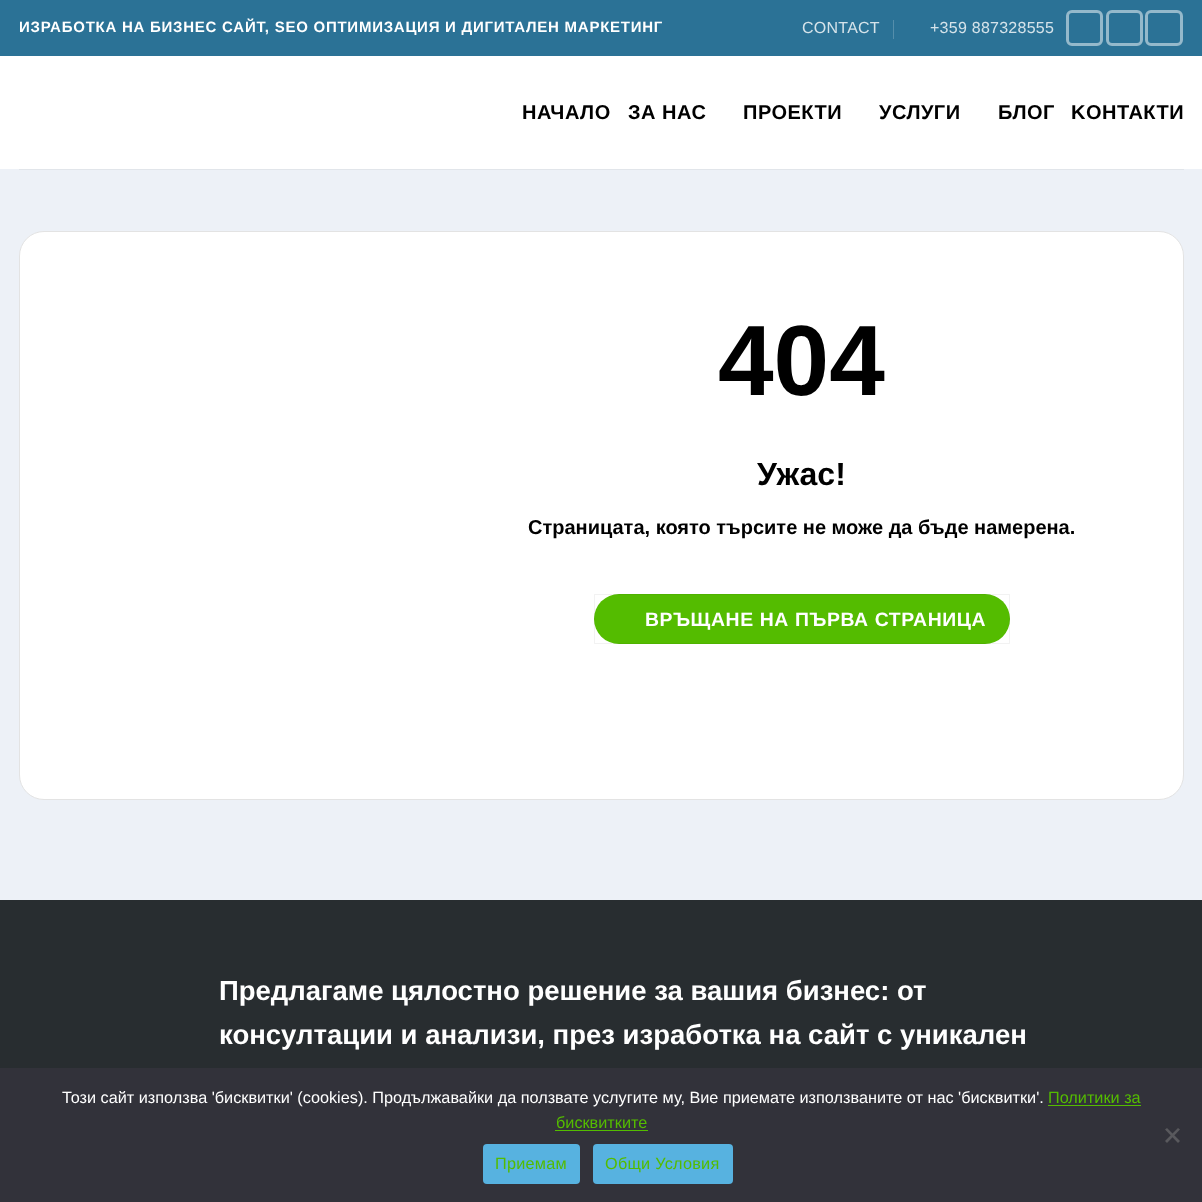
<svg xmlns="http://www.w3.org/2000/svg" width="1202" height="1202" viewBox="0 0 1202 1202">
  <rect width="100%" height="100%" fill="#fff"/>
  <path d="M0 0h1202v56H0z" fill="#2b7296"/>
  <path d="M893 20h1v19H893z" fill="#558eab"/>
  <rect x="1067.5" y="11.5" width="34" height="33" rx="4.5" fill="none" stroke="#95b9cb" stroke-width="3"/>
  <rect x="1107.5" y="11.5" width="34" height="33" rx="4.5" fill="none" stroke="#95b9cb" stroke-width="3"/>
  <rect x="1146.5" y="11.5" width="35" height="33" rx="4.5" fill="none" stroke="#95b9cb" stroke-width="3"/>
  <path d="M0 169h1202v731H0z" fill="#edf1f7"/>
  <path d="M19 169h1165v1H19z" fill="#e1e5ea"/>
  <rect x="19.5" y="231.5" width="1164" height="568" rx="24.5" fill="#fff" stroke="#e3e3e3"/>
  <rect x="594" y="594" width="416" height="50" rx="25" fill="#54bc00"/>
  <path d="M594.5 594.5h415v49H594.5z" fill="none" stroke="#0000000d"/>
  <path d="M0 900h1202v168H0z" fill="#282d30"/>
  <path d="M0 1068h1202v134H0z" fill="#32323a"/>
  <path d="M1048 1105h93v1H1048z" fill="#54bc00"/>
  <path d="M555 1130h93v1H555z" fill="#54bc00"/>
  <path d="M1178 1128L1180 1129.5L1167 1143L1165 1141Z" fill="#59595d"/>
  <path d="M1165 1129.5L1167 1128L1180 1141L1178 1143Z" fill="#59595d"/>
  <rect x="483" y="1144" width="97" height="40" rx="4" fill="#57b2e0"/>
  <rect x="593" y="1144" width="140" height="40" rx="4" fill="#57b2e0"/>
  <text x="19" y="32" font-family="Liberation Sans" font-size="15" font-weight="bold" letter-spacing="0.75" fill="#fff">ИЗРАБОТКА НА БИЗНЕС САЙТ, SEO ОПТИМИЗАЦИЯ И ДИГИТАЛЕН МАРКЕТИНГ</text>
  <g font-family="Liberation Sans" font-size="16" letter-spacing="0.25" fill="#d5e3ea">
    <text x="802" y="33">CONTACT</text>
    <text x="930" y="33">+359 887328555</text>
  </g>
  <g font-family="Liberation Sans" font-size="20" font-weight="bold" letter-spacing="0.5" fill="#000">
    <text x="522" y="119">НАЧАЛО</text>
    <text x="628" y="119">ЗА НАС</text>
    <text x="743" y="119">ПРОЕКТИ</text>
    <text x="879" y="119">УСЛУГИ</text>
    <text x="998" y="119">БЛОГ</text>
    <text x="1071" y="119">KОНТАКТИ</text>
  </g>
  <text x="718" y="395" font-family="Liberation Sans" font-size="100" font-weight="bold" fill="#000">404</text>
  <text x="757" y="485" font-family="Liberation Sans" font-size="32" font-weight="bold" fill="#000">Ужас!</text>
  <text x="528" y="534" font-family="Liberation Sans" font-size="20" font-weight="bold" fill="#000">Страницата, която търсите не може да бъде намерена.</text>
  <text x="645" y="626" font-family="Liberation Sans" font-size="19.4" font-weight="bold" letter-spacing="0.6" fill="#fff">ВРЪЩАНЕ НА ПЪРВА СТРАНИЦА</text>
  <g font-family="Liberation Sans" font-size="27.5" font-weight="bold" fill="#fff">
    <text x="219" y="1000">Предлагаме цялостно решение за вашия бизнес: от</text>
    <text x="219" y="1044">консултации и анализи, през изработка на сайт с уникален</text>
  </g>
  <text x="62" y="1103" font-family="Liberation Sans" font-size="16.25" fill="#fff">Този сайт използва 'бисквитки' (cookies). Продължавайки да ползвате услугите му, Вие приемате използваните от нас 'бисквитки'.</text>
  <g font-family="Liberation Sans" font-size="16.25" fill="#54bc00">
    <text x="1048" y="1103">Политики за</text>
    <text x="556" y="1128">бисквитките</text>
  </g>
  <g font-family="Liberation Sans" font-size="16.25" letter-spacing="0.25" fill="#54bc00">
    <text x="495" y="1169">Приемам</text>
    <text x="605" y="1169">Общи Условия</text>
  </g>
</svg>
